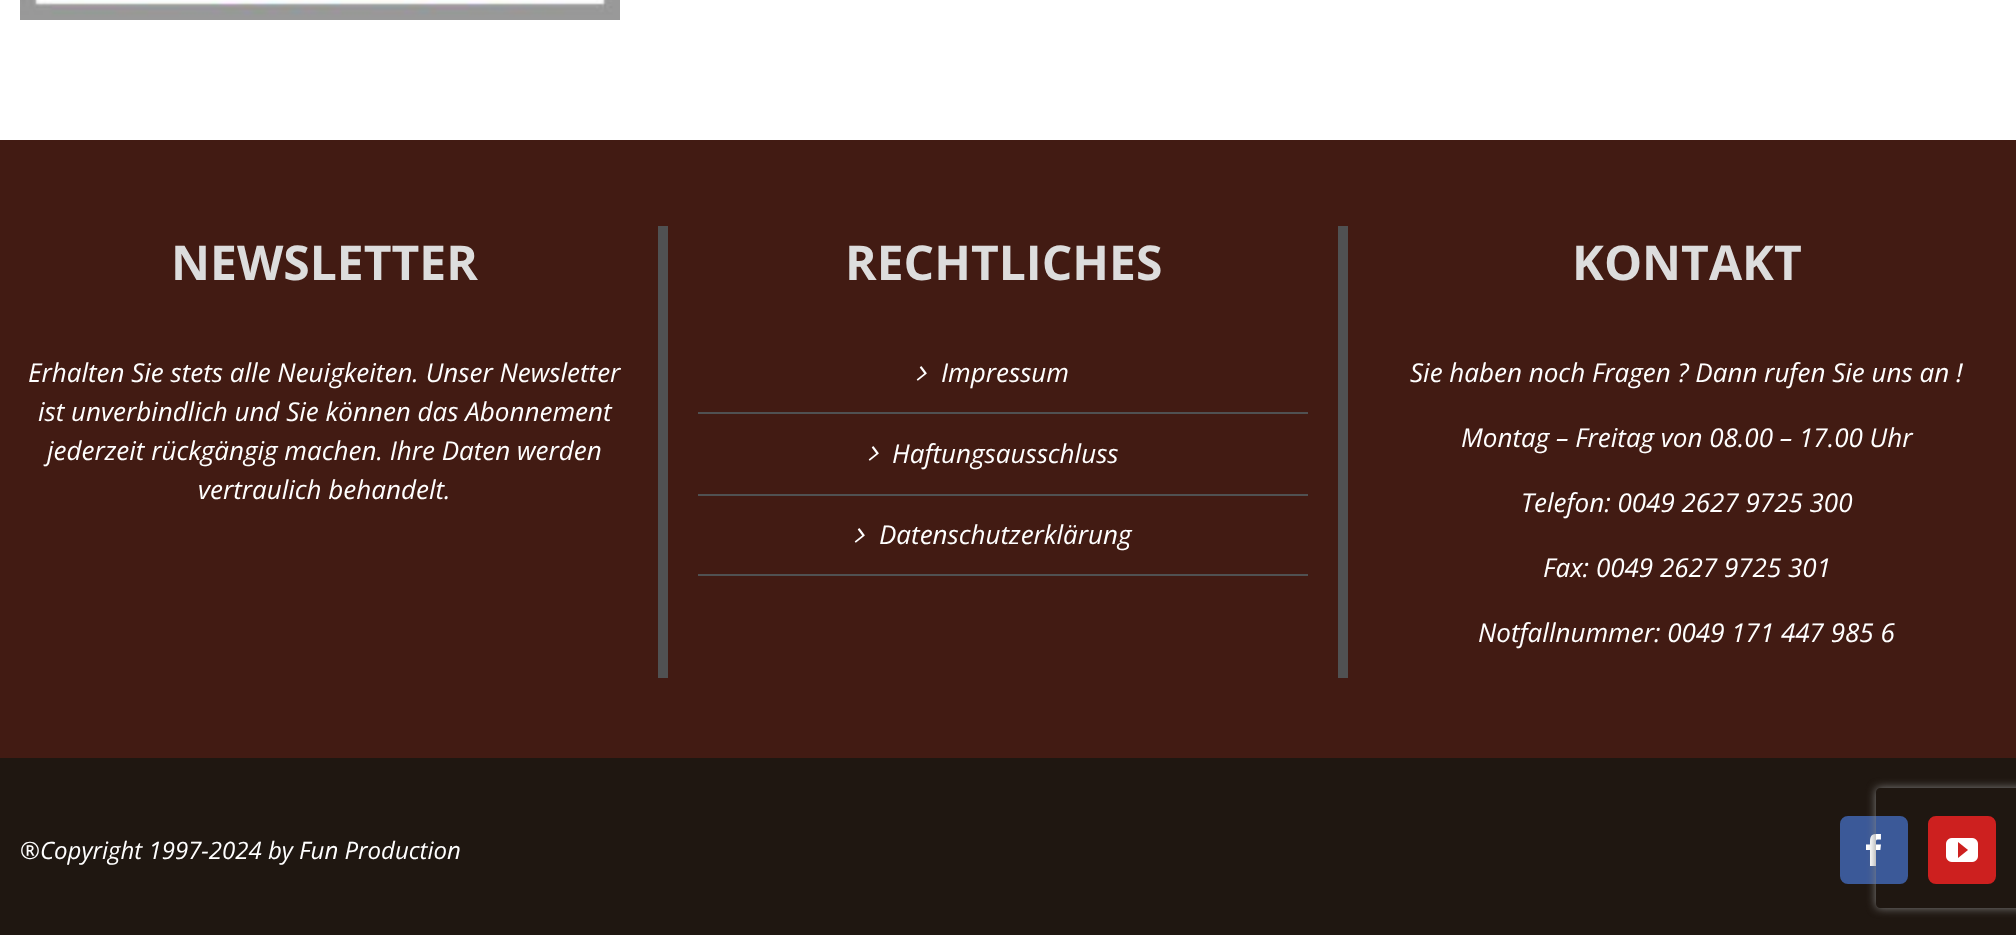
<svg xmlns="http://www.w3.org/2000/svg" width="2016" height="935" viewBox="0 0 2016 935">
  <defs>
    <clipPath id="clip1"><path d="M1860 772H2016V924H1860ZM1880 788H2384C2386 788 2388 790 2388 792V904C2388 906 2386 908 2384 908H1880C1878 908 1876 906 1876 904V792C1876 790 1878 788 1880 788Z" clip-rule="evenodd"/></clipPath>
  </defs>
  <rect width="100%" height="100%" fill="#fff"/>
  <image x="20" y="0" width="600" height="20" href="img/1.png"/>
  <path d="M0 140h2016v618H0z" fill="#421b13"/>
  <path d="M658 226h10v452H658z" fill="#505152"/>
  <path d="M1338 226h10v452H1338z" fill="#505152"/>
  <path d="M698 412h610v2H698z" fill="#505152"/>
  <image x="916" y="366" width="11" height="15" href="img/2.png"/>
  <path d="M698 494h610v2H698z" fill="#505152"/>
  <image x="868" y="446" width="11" height="15" href="img/2.png"/>
  <path d="M698 574h610v2H698z" fill="#505152"/>
  <image x="854" y="528" width="11" height="15" href="img/2.png"/>
  <path d="M0 758h2016v177H0z" fill="#1f1711"/>
  <rect x="1841" y="817" width="66" height="66" rx="7" fill="#3b5998" stroke="#3b5998" stroke-width="2"/>
  <image x="1866" y="834" width="15" height="32" href="img/3.png"/>
  <rect x="1929" y="817" width="66" height="66" rx="7" fill="#cd201f" stroke="#cd201f" stroke-width="2"/>
  <image x="1946" y="838" width="32" height="24" href="img/4.png"/>
  <g clip-path="url(#clip1)">
    <rect x="1876" y="788" width="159" height="120" rx="4" fill="#808080" filter="blur(5px)"/>
  </g>
  <text x="171" y="280" font-family="Open Sans" font-size="48" font-weight="bold" fill="#ddd">NEWSLETTER</text>
  <g font-family="Open Sans" font-size="26" font-style="italic" fill="#fff">
    <text x="28" y="382">Erhalten Sie stets alle Neuigkeiten. Unser Newsletter</text>
    <text x="38" y="421">ist unverbindlich und Sie können das Abonnement</text>
    <text x="47" y="460">jederzeit rückgängig machen. Ihre Daten werden</text>
    <text x="198" y="499">vertraulich behandelt.</text>
  </g>
  <text x="845" y="280" font-family="Open Sans" font-size="48" font-weight="bold" fill="#ddd">RECHTLICHES</text>
  <g font-family="Open Sans" font-size="26" font-style="italic" fill="#fff">
    <text x="941" y="382">Impressum</text>
    <text x="892" y="463">Haftungsausschluss</text>
    <text x="879" y="544">Datenschutzerklärung</text>
  </g>
  <text x="1572" y="280" font-family="Open Sans" font-size="48" font-weight="bold" fill="#ddd">KONTAKT</text>
  <g font-family="Open Sans" font-size="26" font-style="italic" fill="#fff">
    <text x="1410" y="382">Sie haben noch Fragen ? Dann rufen Sie uns an !</text>
    <text x="1461" y="447">Montag – Freitag von 08.00 – 17.00 Uhr</text>
    <text x="1521" y="512">Telefon: 0049 2627 9725 300</text>
    <text x="1543" y="577">Fax: 0049 2627 9725 301</text>
    <text x="1478" y="642">Notfallnummer: 0049 171 447 985 6</text>
  </g>
  <text x="20" y="859" font-family="Open Sans" font-size="24" font-style="italic" fill="#fff">®Copyright 1997-2024 by Fun Production</text>
</svg>
